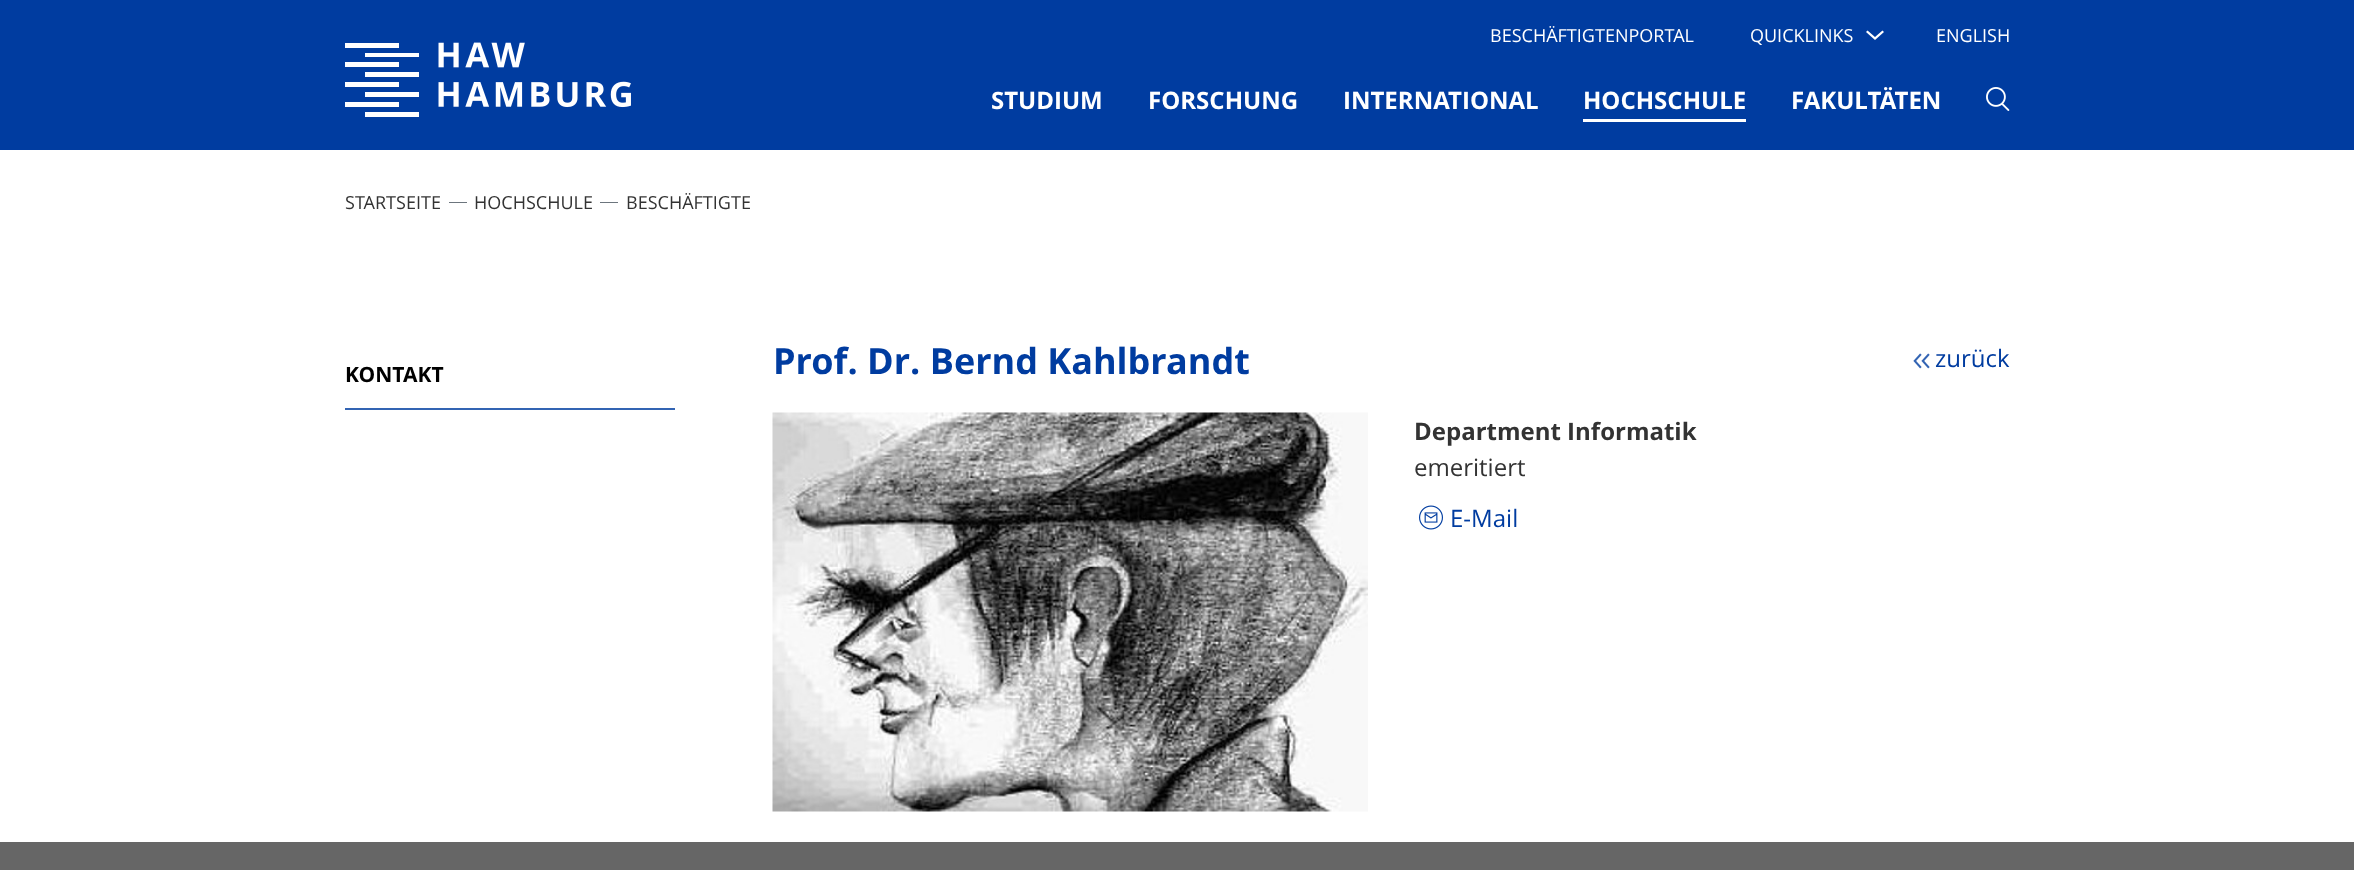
<svg xmlns="http://www.w3.org/2000/svg" width="2354" height="870" viewBox="0 0 2354 870">
  <rect width="100%" height="100%" fill="#fff"/>
  <path d="M0 0h2354v150H0z" fill="#003ca0"/>
  <image x="345" y="42" width="286" height="75" href="img/1.png"/>
  <path d="M1866 32L1867.5 30.5L1875 37L1882.5 30.5L1884 32L1875 40Z" fill="#fff"/>
  <path d="M1583 119h163v3H1583z" fill="#fff"/>
  <image x="1986" y="87" width="24" height="24" href="img/2.png"/>
  <path d="M449 202h18v1H449z" fill="#6c757d"/>
  <path d="M600 202h18v1H600z" fill="#6c757d"/>
  <path d="M345 408h330v2H345z" fill="#3364b3"/>
  <image x="1913" y="353" width="17" height="16" href="img/3.png"/>
  <image x="772" y="412" width="596" height="400" href="img/4.png"/>
  <image x="1419" y="505" width="24" height="25" href="img/5.png"/>
  <path d="M0 842h2354v28H0z" fill="#666"/>
  <g font-family="Open Sans" font-size="18" fill="#fff">
    <text x="1490" y="42">BESCHÄFTIGTENPORTAL</text>
    <text x="1750" y="42">QUICKLINKS</text>
    <text x="1936" y="42">ENGLISH</text>
  </g>
  <g font-family="Open Sans" font-size="24" font-weight="bold" fill="#fff">
    <text x="991" y="109">STUDIUM</text>
    <text x="1148" y="109">FORSCHUNG</text>
    <text x="1343" y="109">INTERNATIONAL</text>
    <text x="1583" y="109">HOCHSCHULE</text>
    <text x="1791" y="109">FAKULTÄTEN</text>
  </g>
  <g font-family="Open Sans" font-size="18" fill="#333">
    <text x="345" y="209">STARTSEITE</text>
    <text x="474" y="209">HOCHSCHULE</text>
    <text x="626" y="209">BESCHÄFTIGTE</text>
  </g>
  <text x="345" y="382" font-family="Open Sans" font-size="21" font-weight="bold" fill="#000">KONTAKT</text>
  <text x="773" y="374" font-family="Open Sans" font-size="36" font-weight="bold" fill="#003ca0">Prof. Dr. Bernd Kahlbrandt</text>
  <text x="1935" y="367" font-family="Open Sans" font-size="24" fill="#003ca0">zurück</text>
  <text x="1414" y="440" font-family="Open Sans" font-size="24" font-weight="bold" fill="#333">Department Informatik</text>
  <text x="1414" y="476" font-family="Open Sans" font-size="24" fill="#333">emeritiert</text>
  <text x="1450" y="527" font-family="Open Sans" font-size="24" fill="#003ca0">E-Mail</text>
</svg>
